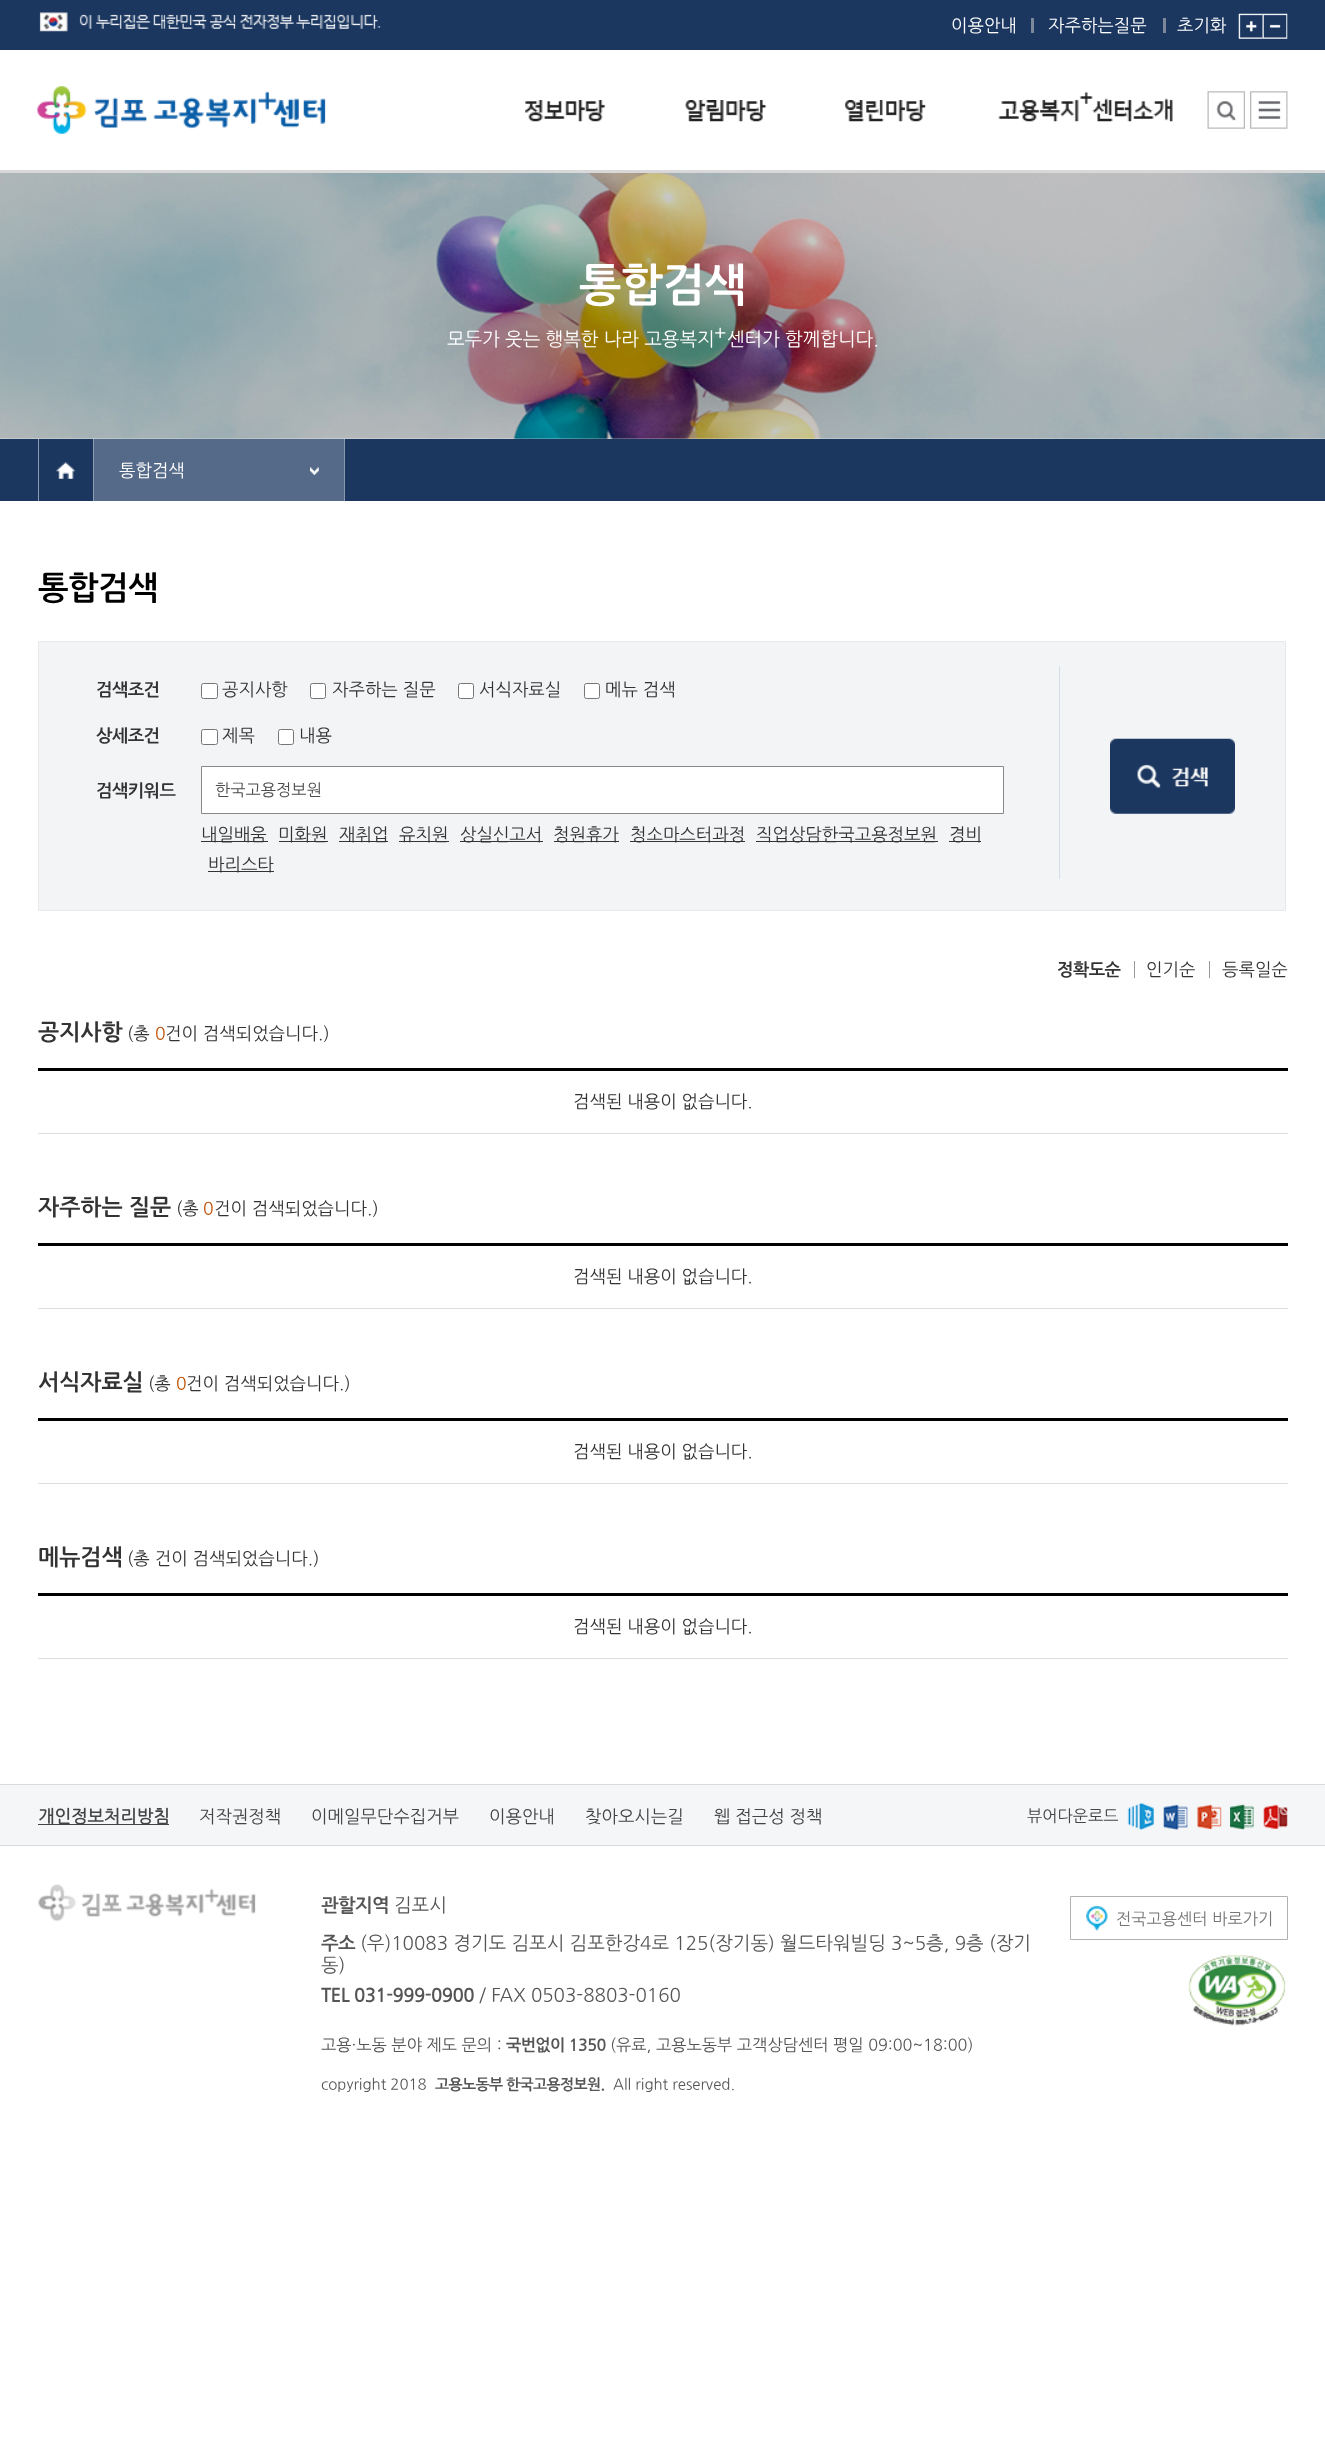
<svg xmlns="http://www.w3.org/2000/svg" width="1325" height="2450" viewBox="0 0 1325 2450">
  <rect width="100%" height="100%" fill="#fff"/>
  <path d="M0 0h1325v50H0z" fill="#1b3760"/>
  <image x="39" y="12" width="342" height="20" href="img/1.png"/>
  <path d="M1031 18h3v15H1031z" fill="#7c879a"/>
  <path d="M1163 18h3v15H1163z" fill="#7c879a"/>
  <image x="1238" y="13" width="25" height="26" href="img/2.png"/>
  <image x="1262" y="13" width="26" height="26" href="img/3.png"/>
  <image x="37" y="86" width="289" height="48" href="img/4.png"/>
  <image x="1207" y="91" width="38" height="38" href="img/5.png"/>
  <image x="1250" y="91" width="38" height="38" href="img/6.png"/>
  <image x="525" y="100" width="80" height="22" href="img/7.png"/>
  <image x="685" y="100" width="82" height="22" href="img/8.png"/>
  <image x="845" y="100" width="81" height="22" href="img/9.png"/>
  <image x="998" y="92" width="175" height="30" href="img/10.png"/>
  <path d="M0 170h1325v3H0z" fill="#d8d8d8"/>
  <image x="0" y="173" width="1325" height="266" href="img/11.png"/>
  <path d="M0 439h1325v62H0z" fill="#1b3760"/>
  <image x="56" y="462" width="19" height="17" href="img/12.png"/>
  <path d="M93 439h1v62H93z" fill="#8f9db1"/>
  <path d="M38 439h1v62H38z" fill="#8f9db1"/>
  <path d="M344 439h1v62H344z" fill="#8a98ad"/>
  <path d="M94 439h250v62H94z" fill="#556a88"/>
  <image x="310" y="467" width="9" height="8" href="img/13.png"/>
  <path d="M38.5 641.5h1247v269H38.5z" fill="#f3f4f6" stroke="#e9e9e9"/>
  <rect x="201.5" y="683.5" width="16" height="15" rx="2" fill="#fff" stroke="#767676"/>
  <rect x="310.5" y="683.5" width="15" height="15" rx="2" fill="#fff" stroke="#767676"/>
  <rect x="458.5" y="683.5" width="15" height="15" rx="2" fill="#fff" stroke="#767676"/>
  <rect x="584.5" y="683.5" width="15" height="15" rx="2" fill="#fff" stroke="#767676"/>
  <path d="M1059 666h1v213H1059z" fill="#d5dde6"/>
  <rect x="201.5" y="729.5" width="16" height="15" rx="2" fill="#fff" stroke="#767676"/>
  <rect x="278.5" y="729.5" width="15" height="15" rx="2" fill="#fff" stroke="#767676"/>
  <path d="M201.5 766.5h802v47H201.5z" fill="#fff" stroke="#888"/>
  <path d="M201 841h67v1H201z" fill="#333"/>
  <path d="M279 841h49v1H279z" fill="#333"/>
  <path d="M339 841h49v1H339z" fill="#333"/>
  <path d="M399 841h50v1H399z" fill="#333"/>
  <path d="M460 841h83v1H460z" fill="#333"/>
  <path d="M554 841h65v1H554z" fill="#333"/>
  <path d="M630 841h115v1H630z" fill="#333"/>
  <path d="M756 841h182v1H756z" fill="#333"/>
  <path d="M949 841h32v1H949z" fill="#333"/>
  <path d="M208 871h66v1H208z" fill="#333"/>
  <image x="1110" y="738" width="125" height="76" href="img/14.png"/>
  <path d="M1134 961h1v17H1134z" fill="#999"/>
  <path d="M1209 961h1v17H1209z" fill="#999"/>
  <path d="M38 1068h1250v3H38z" fill="#000"/>
  <path d="M38 1133h1250v1H38z" fill="#dedede"/>
  <path d="M38 1243h1250v3H38z" fill="#000"/>
  <path d="M38 1308h1250v1H38z" fill="#dedede"/>
  <path d="M38 1418h1250v3H38z" fill="#000"/>
  <path d="M38 1483h1250v1H38z" fill="#dedede"/>
  <path d="M38 1593h1250v3H38z" fill="#000"/>
  <path d="M38 1658h1250v1H38z" fill="#dedede"/>
  <path d="M0 1785h1325v60H0z" fill="#f5f6f8"/>
  <path d="M0 1784h1325v1H0z" fill="#dadada"/>
  <path d="M0 1845h1325v1H0z" fill="#dadada"/>
  <path d="M38 1824h131v1H38z" fill="#444"/>
  <image x="1127" y="1802" width="27" height="28" href="img/15.png"/>
  <image x="1163" y="1804" width="25" height="26" href="img/16.png"/>
  <image x="1197" y="1804" width="25" height="26" href="img/17.png"/>
  <image x="1230" y="1804" width="24" height="26" href="img/18.png"/>
  <image x="1263" y="1804" width="25" height="25" href="img/19.png"/>
  <image x="37" y="1884" width="219" height="38" href="img/20.png"/>
  <image x="1086" y="1906" width="22" height="26" href="img/21.png"/>
  <path d="M1070.5 1896.5h217v43H1070.5z" fill="none" stroke="#b1b1b1"/>
  <image x="1188" y="1954" width="98" height="72" href="img/22.png"/>
  <g font-family="NanumGothic" font-size="17.5" fill="#fff">
    <text x="951" y="31">이용안내</text>
    <text x="1048" y="31">자주하는질문</text>
    <text x="1177" y="31">초기화</text>
  </g>
  <text x="579" y="299" font-family="NanumGothic" font-size="45" font-weight="bold" letter-spacing="-0.6" fill="#fff">통합검색</text>
  <g font-family="NanumGothic" font-size="18.75" fill="#fff">
    <text x="447" y="345">모두가 웃는 행복한 나라 고용복지</text>
    <text x="714" y="339">+</text>
    <text x="727" y="345">센터가 함께합니다.</text>
  </g>
  <text x="119" y="476" font-family="NanumGothic" font-size="17.5" fill="#fff">통합검색</text>
  <text x="38" y="598" font-family="NanumGothic" font-size="32.5" font-weight="bold" letter-spacing="-0.6" fill="#000">통합검색</text>
  <text x="96" y="695" font-family="NanumGothic" font-size="17.5" font-weight="bold" letter-spacing="-0.6" fill="#333">검색조건</text>
  <g font-family="NanumGothic" font-size="17.5" fill="#333">
    <text x="222" y="695">공지사항</text>
    <text x="332" y="695">자주하는 질문</text>
    <text x="479" y="695">서식자료실</text>
    <text x="605" y="695">메뉴 검색</text>
  </g>
  <text x="96" y="741" font-family="NanumGothic" font-size="17.5" font-weight="bold" letter-spacing="-0.6" fill="#333">상세조건</text>
  <g font-family="NanumGothic" font-size="17.5" fill="#333">
    <text x="222" y="741">제목</text>
    <text x="299" y="741">내용</text>
  </g>
  <text x="96" y="796" font-family="NanumGothic" font-size="17.5" font-weight="bold" letter-spacing="-0.6" fill="#333">검색키워드</text>
  <text x="215" y="795" font-family="NanumGothic" font-size="16.25" fill="#4c4c4c">한국고용정보원</text>
  <g font-family="NanumGothic" font-size="17.5" fill="#333">
    <text x="201" y="840">내일배움</text>
    <text x="278" y="840">미화원</text>
    <text x="339" y="840">재취업</text>
    <text x="399" y="840">유치원</text>
    <text x="460" y="840">상실신고서</text>
    <text x="553" y="840">청원휴가</text>
    <text x="630" y="840">청소마스터과정</text>
    <text x="756" y="840">직업상담한국고용정보원</text>
    <text x="949" y="840">경비</text>
    <text x="208" y="870">바리스타</text>
  </g>
  <text x="1057" y="975" font-family="NanumGothic" font-size="17.5" font-weight="bold" letter-spacing="-0.6" fill="#333">정확도순</text>
  <g font-family="NanumGothic" font-size="17.5" fill="#333">
    <text x="1146" y="975">인기순</text>
    <text x="1222" y="975">등록일순</text>
  </g>
  <text x="38" y="1039" font-family="NanumGothic" font-size="22.5" font-weight="bold" fill="#333">공지사항</text>
  <text x="127" y="1039" font-family="NanumGothic" font-size="17.5" fill="#333">(총</text>
  <text x="155" y="1039" font-family="NanumGothic" font-size="17.5" fill="#c24e00">0</text>
  <g font-family="NanumGothic" font-size="17.5" fill="#333">
    <text x="165" y="1039">건이 검색되었습니다.)</text>
    <text x="573" y="1107">검색된 내용이 없습니다.</text>
  </g>
  <text x="38" y="1214" font-family="NanumGothic" font-size="22.5" font-weight="bold" fill="#333">자주하는 질문</text>
  <text x="176" y="1214" font-family="NanumGothic" font-size="17.5" fill="#333">(총</text>
  <text x="203" y="1214" font-family="NanumGothic" font-size="17.5" fill="#c24e00">0</text>
  <g font-family="NanumGothic" font-size="17.5" fill="#333">
    <text x="214" y="1214">건이 검색되었습니다.)</text>
    <text x="573" y="1282">검색된 내용이 없습니다.</text>
  </g>
  <text x="38" y="1389" font-family="NanumGothic" font-size="22.5" font-weight="bold" fill="#333">서식자료실</text>
  <text x="148" y="1389" font-family="NanumGothic" font-size="17.5" fill="#333">(총</text>
  <text x="176" y="1389" font-family="NanumGothic" font-size="17.5" fill="#c24e00">0</text>
  <g font-family="NanumGothic" font-size="17.5" fill="#333">
    <text x="186" y="1389">건이 검색되었습니다.)</text>
    <text x="573" y="1457">검색된 내용이 없습니다.</text>
  </g>
  <text x="38" y="1564" font-family="NanumGothic" font-size="22.5" font-weight="bold" fill="#333">메뉴검색</text>
  <g font-family="NanumGothic" font-size="17.5" fill="#333">
    <text x="127" y="1564">(총 건이 검색되었습니다.)</text>
    <text x="573" y="1632">검색된 내용이 없습니다.</text>
  </g>
  <text x="38" y="1822" font-family="'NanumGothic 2'" font-size="17.5" font-weight="bold" fill="#444">개인정보처리방침</text>
  <g font-family="NanumGothic" font-size="17.5" fill="#444">
    <text x="199" y="1822">저작권정책</text>
    <text x="311" y="1822">이메일무단수집거부</text>
    <text x="489" y="1822">이용안내</text>
    <text x="585" y="1822">찾아오시는길</text>
    <text x="714" y="1822">웹 접근성 정책</text>
  </g>
  <text x="1027" y="1821" font-family="NanumGothic" font-size="16.25" fill="#444">뷰어다운로드</text>
  <text x="321" y="1911" font-family="NanumGothic" font-size="18.75" font-weight="bold" letter-spacing="-0.6" fill="#555">관할지역</text>
  <text x="394" y="1911" font-family="NanumGothic" font-size="18.75" fill="#555">김포시</text>
  <text x="321" y="1949" font-family="NanumGothic" font-size="18.75" font-weight="bold" letter-spacing="-0.6" fill="#555">주소</text>
  <g font-family="NanumGothic" font-size="18.75" fill="#555">
    <text x="360" y="1949">(우)10083 경기도 김포시 김포한강4로 125(장기동) 월드타워빌딩 3~5층, 9층 (장기</text>
    <text x="321" y="1971">동)</text>
  </g>
  <text x="321" y="2001" font-family="NanumGothic" font-size="18.75" font-weight="bold" letter-spacing="-0.6" fill="#555">TEL 031-999-0900</text>
  <text x="479" y="2001" font-family="NanumGothic" font-size="18.75" fill="#555">/ FAX 0503-8803-0160</text>
  <text x="1116" y="1924" font-family="NanumGothic" font-size="16.25" fill="#767676">전국고용센터 바로가기</text>
  <text x="321" y="2050" font-family="NanumGothic" font-size="16.25" fill="#555">고용·노동 분야 제도 문의 :</text>
  <text x="506" y="2050" font-family="NanumGothic" font-size="16.25" font-weight="bold" letter-spacing="-0.6" fill="#555">국번없이 1350</text>
  <text x="610" y="2050" font-family="NanumGothic" font-size="16.25" fill="#555">(유료, 고용노동부 고객상담센터 평일 09:00~18:00)</text>
  <text x="321" y="2089" font-family="NanumGothic" font-size="15" fill="#555">copyright 2018</text>
  <text x="435" y="2089" font-family="NanumGothic" font-size="15" font-weight="bold" letter-spacing="-0.6" fill="#555">고용노동부 한국고용정보원.</text>
  <text x="613" y="2089" font-family="NanumGothic" font-size="15" fill="#555">All right reserved.</text>
</svg>
